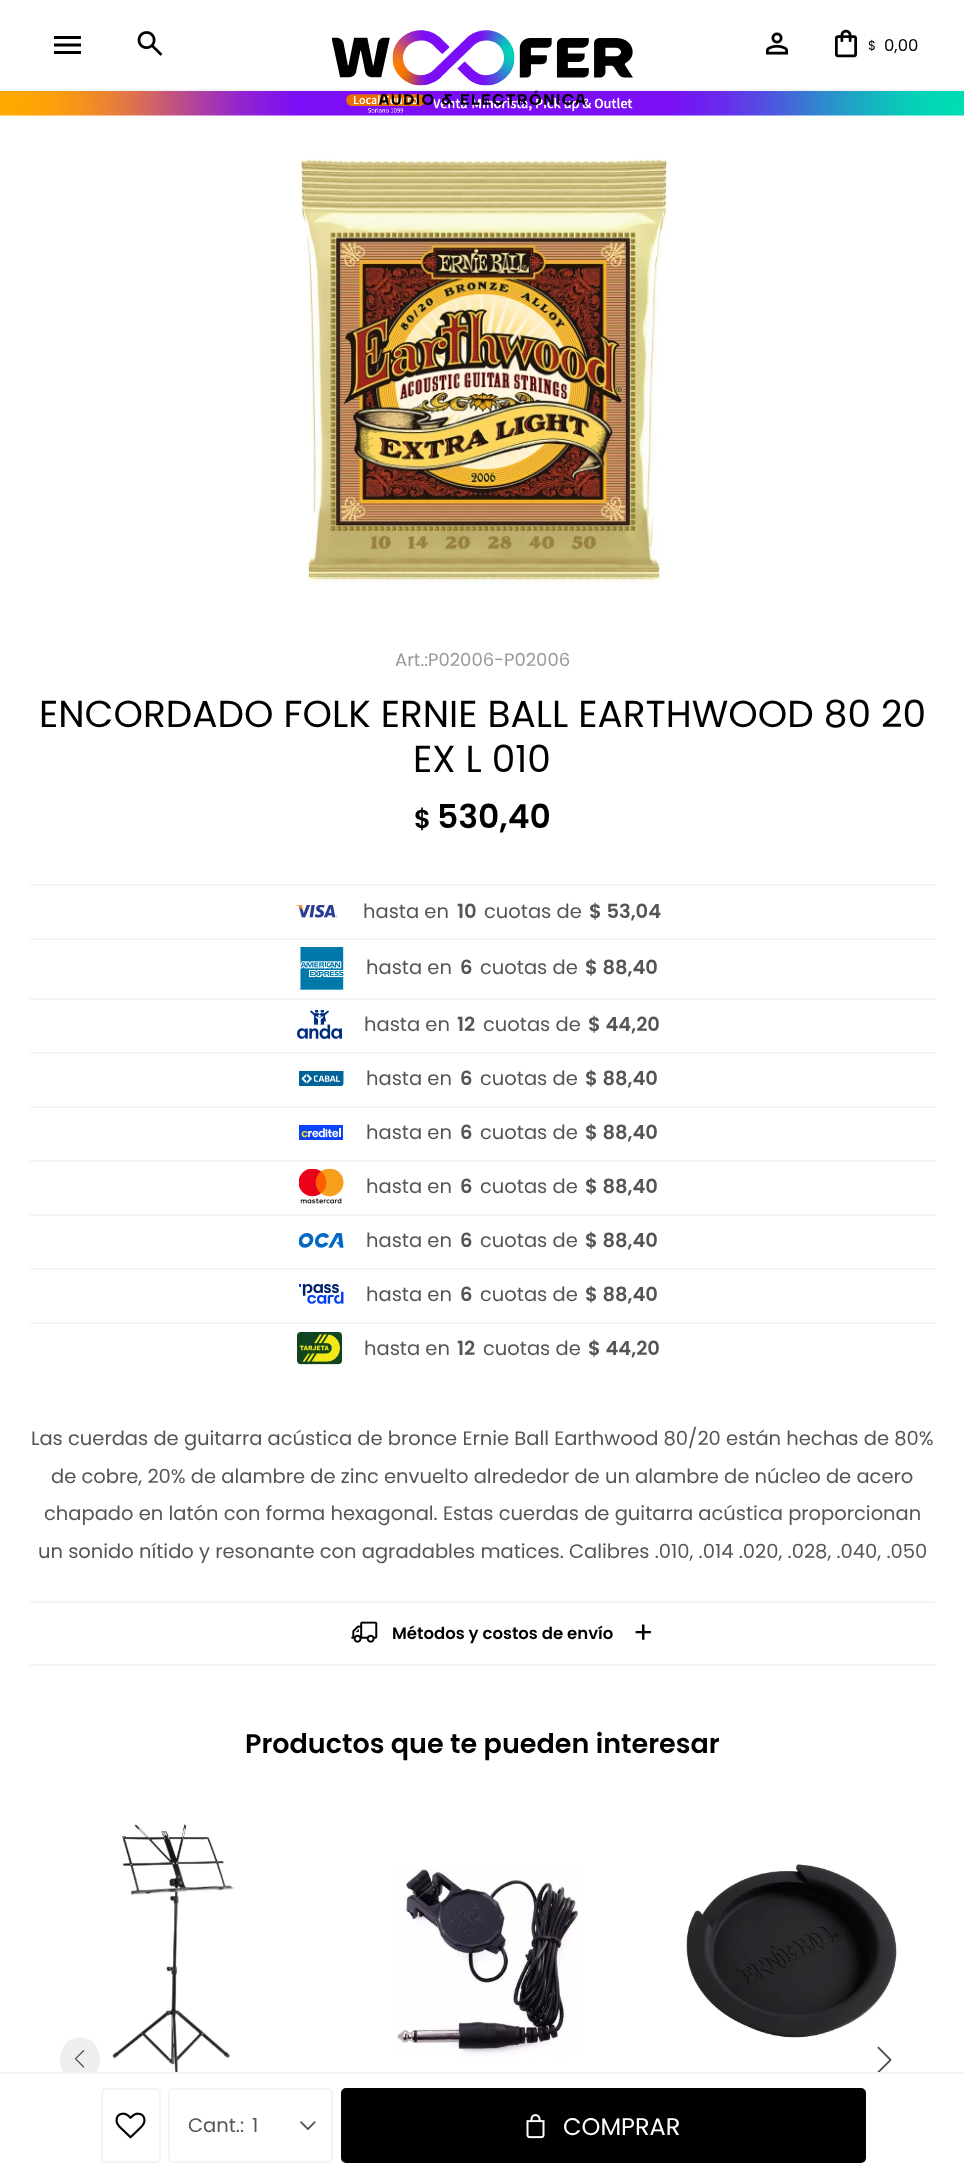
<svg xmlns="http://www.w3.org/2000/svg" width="964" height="2177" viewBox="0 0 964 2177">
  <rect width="100%" height="100%" fill="#fff"/>
  <image x="54" y="36" width="27" height="18" href="img/1.png"/>
  <image x="137" y="31" width="26" height="25" href="img/2.png"/>
  <path d="M0 89h964v2H0z" fill="#f3f4f6"/>
  <image x="0" y="91" width="964" height="25" href="img/6.png"/>
  <image x="332" y="30" width="301" height="75" href="img/3.png"/>
  <image x="766" y="32" width="22" height="23" href="img/4.png"/>
  <image x="835" y="29" width="22" height="29" href="img/5.png"/>
  <image x="300" y="158" width="369" height="426" href="img/7.png"/>
  <path d="M30 884h905v2H30z" fill="#f3f4f6"/>
  <image x="296" y="905" width="42" height="13" href="img/8.png"/>
  <path d="M30 938h905v2H30z" fill="#f3f4f6"/>
  <image x="299" y="947" width="45" height="43" href="img/9.png"/>
  <path d="M30 998h905v2H30z" fill="#f3f4f6"/>
  <image x="297" y="1010" width="45" height="29" href="img/10.png"/>
  <path d="M30 1052h905v2H30z" fill="#f3f4f6"/>
  <image x="299" y="1071" width="45" height="15" href="img/11.png"/>
  <path d="M30 1106h905v2H30z" fill="#f3f4f6"/>
  <image x="299" y="1125" width="44" height="15" href="img/12.png"/>
  <path d="M30 1160h905v2H30z" fill="#f3f4f6"/>
  <image x="299" y="1169" width="45" height="35" href="img/13.png"/>
  <path d="M30 1214h905v2H30z" fill="#f3f4f6"/>
  <image x="299" y="1233" width="45" height="15" href="img/14.png"/>
  <path d="M30 1268h905v2H30z" fill="#f3f4f6"/>
  <image x="299" y="1284" width="45" height="20" href="img/15.png"/>
  <path d="M30 1322h905v2H30z" fill="#f3f4f6"/>
  <image x="297" y="1332" width="45" height="33" href="img/16.png"/>
  <path d="M30 1601h905v2H30z" fill="#f3f4f6"/>
  <path d="M30 1664h905v2H30z" fill="#f3f4f6"/>
  <image x="351" y="1621" width="27" height="22" href="img/17.png"/>
  <ellipse cx="80" cy="2059.5" rx="20" ry="22.5" fill="#efefef"/>
  <path d="M65 2074h30v8H65z" fill="#fff"/>
  <path d="M0 2072h964v2H0z" fill="#f3f4f6"/>
  <rect x="102" y="2089" width="58" height="73" rx="4" fill="none" stroke="#f3f4f6" stroke-width="2"/>
  <image x="115" y="2112" width="31" height="27" href="img/18.png"/>
  <image x="300" y="2121" width="16" height="10" href="img/19.png"/>
  <rect x="169" y="2089" width="163" height="73" rx="4" fill="none" stroke="#f3f4f6" stroke-width="2"/>
  <rect x="341" y="2088" width="525" height="75" rx="5" fill="#000"/>
  <image x="526" y="2114" width="19" height="25" href="img/20.png"/>
  <image x="75" y="2050" width="10" height="18" href="img/21.png"/>
  <image x="112" y="1824" width="123" height="248" href="img/22.png"/>
  <image x="396" y="1867" width="182" height="190" href="img/23.png"/>
  <image x="686" y="1864" width="211" height="174" href="img/24.png"/>
  <image x="877" y="2046" width="15" height="26" href="img/25.png"/>
  <text x="868" y="50" font-family="Poppins" font-size="13" fill="#000">$</text>
  <text x="884" y="51" font-family="Poppins" font-size="16.5" fill="#000">0,00</text>
  <text x="395" y="666" font-family="Poppins" font-size="18" fill="#999">Art.:P02006-P02006</text>
  <g font-family="Poppins" font-size="37.5" fill="#000">
    <text x="39" y="727">ENCORDADO FOLK ERNIE BALL EARTHWOOD 80 20</text>
    <text x="413" y="772">EX L 010</text>
  </g>
  <text x="414" y="828" font-family="Poppins" font-size="26" font-weight="600" fill="#000">$</text>
  <text x="437" y="828" font-family="Poppins" font-size="33" font-weight="600" fill="#000">530,40</text>
  <text x="363" y="918" font-family="Poppins" font-size="19.5" fill="#555">hasta en</text>
  <text x="457" y="918" font-family="Poppins" font-size="19.5" font-weight="600" fill="#555">10</text>
  <text x="484" y="918" font-family="Poppins" font-size="19.5" fill="#555">cuotas de</text>
  <text x="589" y="918" font-family="Poppins" font-size="19.5" font-weight="600" fill="#555">$ 53,04</text>
  <text x="366" y="974" font-family="Poppins" font-size="19.5" fill="#555">hasta en</text>
  <text x="460" y="974" font-family="Poppins" font-size="19.5" font-weight="600" fill="#555">6</text>
  <text x="480" y="974" font-family="Poppins" font-size="19.5" fill="#555">cuotas de</text>
  <text x="585" y="974" font-family="Poppins" font-size="19.5" font-weight="600" fill="#555">$ 88,40</text>
  <text x="364" y="1031" font-family="Poppins" font-size="19.5" fill="#555">hasta en</text>
  <text x="457" y="1031" font-family="Poppins" font-size="19.5" font-weight="600" fill="#555">12</text>
  <text x="483" y="1031" font-family="Poppins" font-size="19.5" fill="#555">cuotas de</text>
  <text x="588" y="1031" font-family="Poppins" font-size="19.5" font-weight="600" fill="#555">$ 44,20</text>
  <text x="366" y="1085" font-family="Poppins" font-size="19.5" fill="#555">hasta en</text>
  <text x="460" y="1085" font-family="Poppins" font-size="19.5" font-weight="600" fill="#555">6</text>
  <text x="480" y="1085" font-family="Poppins" font-size="19.5" fill="#555">cuotas de</text>
  <text x="585" y="1085" font-family="Poppins" font-size="19.5" font-weight="600" fill="#555">$ 88,40</text>
  <text x="366" y="1139" font-family="Poppins" font-size="19.5" fill="#555">hasta en</text>
  <text x="460" y="1139" font-family="Poppins" font-size="19.5" font-weight="600" fill="#555">6</text>
  <text x="480" y="1139" font-family="Poppins" font-size="19.5" fill="#555">cuotas de</text>
  <text x="585" y="1139" font-family="Poppins" font-size="19.5" font-weight="600" fill="#555">$ 88,40</text>
  <text x="366" y="1193" font-family="Poppins" font-size="19.5" fill="#555">hasta en</text>
  <text x="460" y="1193" font-family="Poppins" font-size="19.5" font-weight="600" fill="#555">6</text>
  <text x="480" y="1193" font-family="Poppins" font-size="19.5" fill="#555">cuotas de</text>
  <text x="585" y="1193" font-family="Poppins" font-size="19.5" font-weight="600" fill="#555">$ 88,40</text>
  <text x="366" y="1247" font-family="Poppins" font-size="19.5" fill="#555">hasta en</text>
  <text x="460" y="1247" font-family="Poppins" font-size="19.5" font-weight="600" fill="#555">6</text>
  <text x="480" y="1247" font-family="Poppins" font-size="19.5" fill="#555">cuotas de</text>
  <text x="585" y="1247" font-family="Poppins" font-size="19.5" font-weight="600" fill="#555">$ 88,40</text>
  <text x="366" y="1301" font-family="Poppins" font-size="19.5" fill="#555">hasta en</text>
  <text x="460" y="1301" font-family="Poppins" font-size="19.5" font-weight="600" fill="#555">6</text>
  <text x="480" y="1301" font-family="Poppins" font-size="19.5" fill="#555">cuotas de</text>
  <text x="585" y="1301" font-family="Poppins" font-size="19.5" font-weight="600" fill="#555">$ 88,40</text>
  <text x="364" y="1355" font-family="Poppins" font-size="19.5" fill="#555">hasta en</text>
  <text x="457" y="1355" font-family="Poppins" font-size="19.5" font-weight="600" fill="#555">12</text>
  <text x="483" y="1355" font-family="Poppins" font-size="19.5" fill="#555">cuotas de</text>
  <text x="588" y="1355" font-family="Poppins" font-size="19.5" font-weight="600" fill="#555">$ 44,20</text>
  <g font-family="Poppins" font-size="19.5" fill="#555">
    <text x="31" y="1445">Las cuerdas de guitarra acústica de bronce Ernie Ball Earthwood 80/20 están hechas de 80%</text>
    <text x="51" y="1483">de cobre, 20% de alambre de zinc envuelto alrededor de un alambre de núcleo de acero</text>
    <text x="44" y="1520">chapado en latón con forma hexagonal. Estas cuerdas de guitarra acústica proporcionan</text>
    <text x="38" y="1558">un sonido nítido y resonante con agradables matices. Calibres .010, .014 .020, .028, .040, .050</text>
  </g>
  <text x="392" y="1639" font-family="Poppins" font-size="16.5" font-weight="600" fill="#000">Métodos y costos de envío</text>
  <text x="633" y="1643" font-family="Poppins" font-size="30" fill="#000">+</text>
  <g font-family="Poppins" font-size="19.5" fill="#555">
    <text x="188" y="2132">Cant.:</text>
    <text x="252" y="2132">1</text>
  </g>
  <text x="563" y="2135" font-family="Poppins" font-size="24" fill="#fff">COMPRAR</text>
  <text x="245" y="1753" font-family="Poppins" font-size="27" font-weight="600" fill="#000">Productos que te pueden interesar</text>
</svg>
